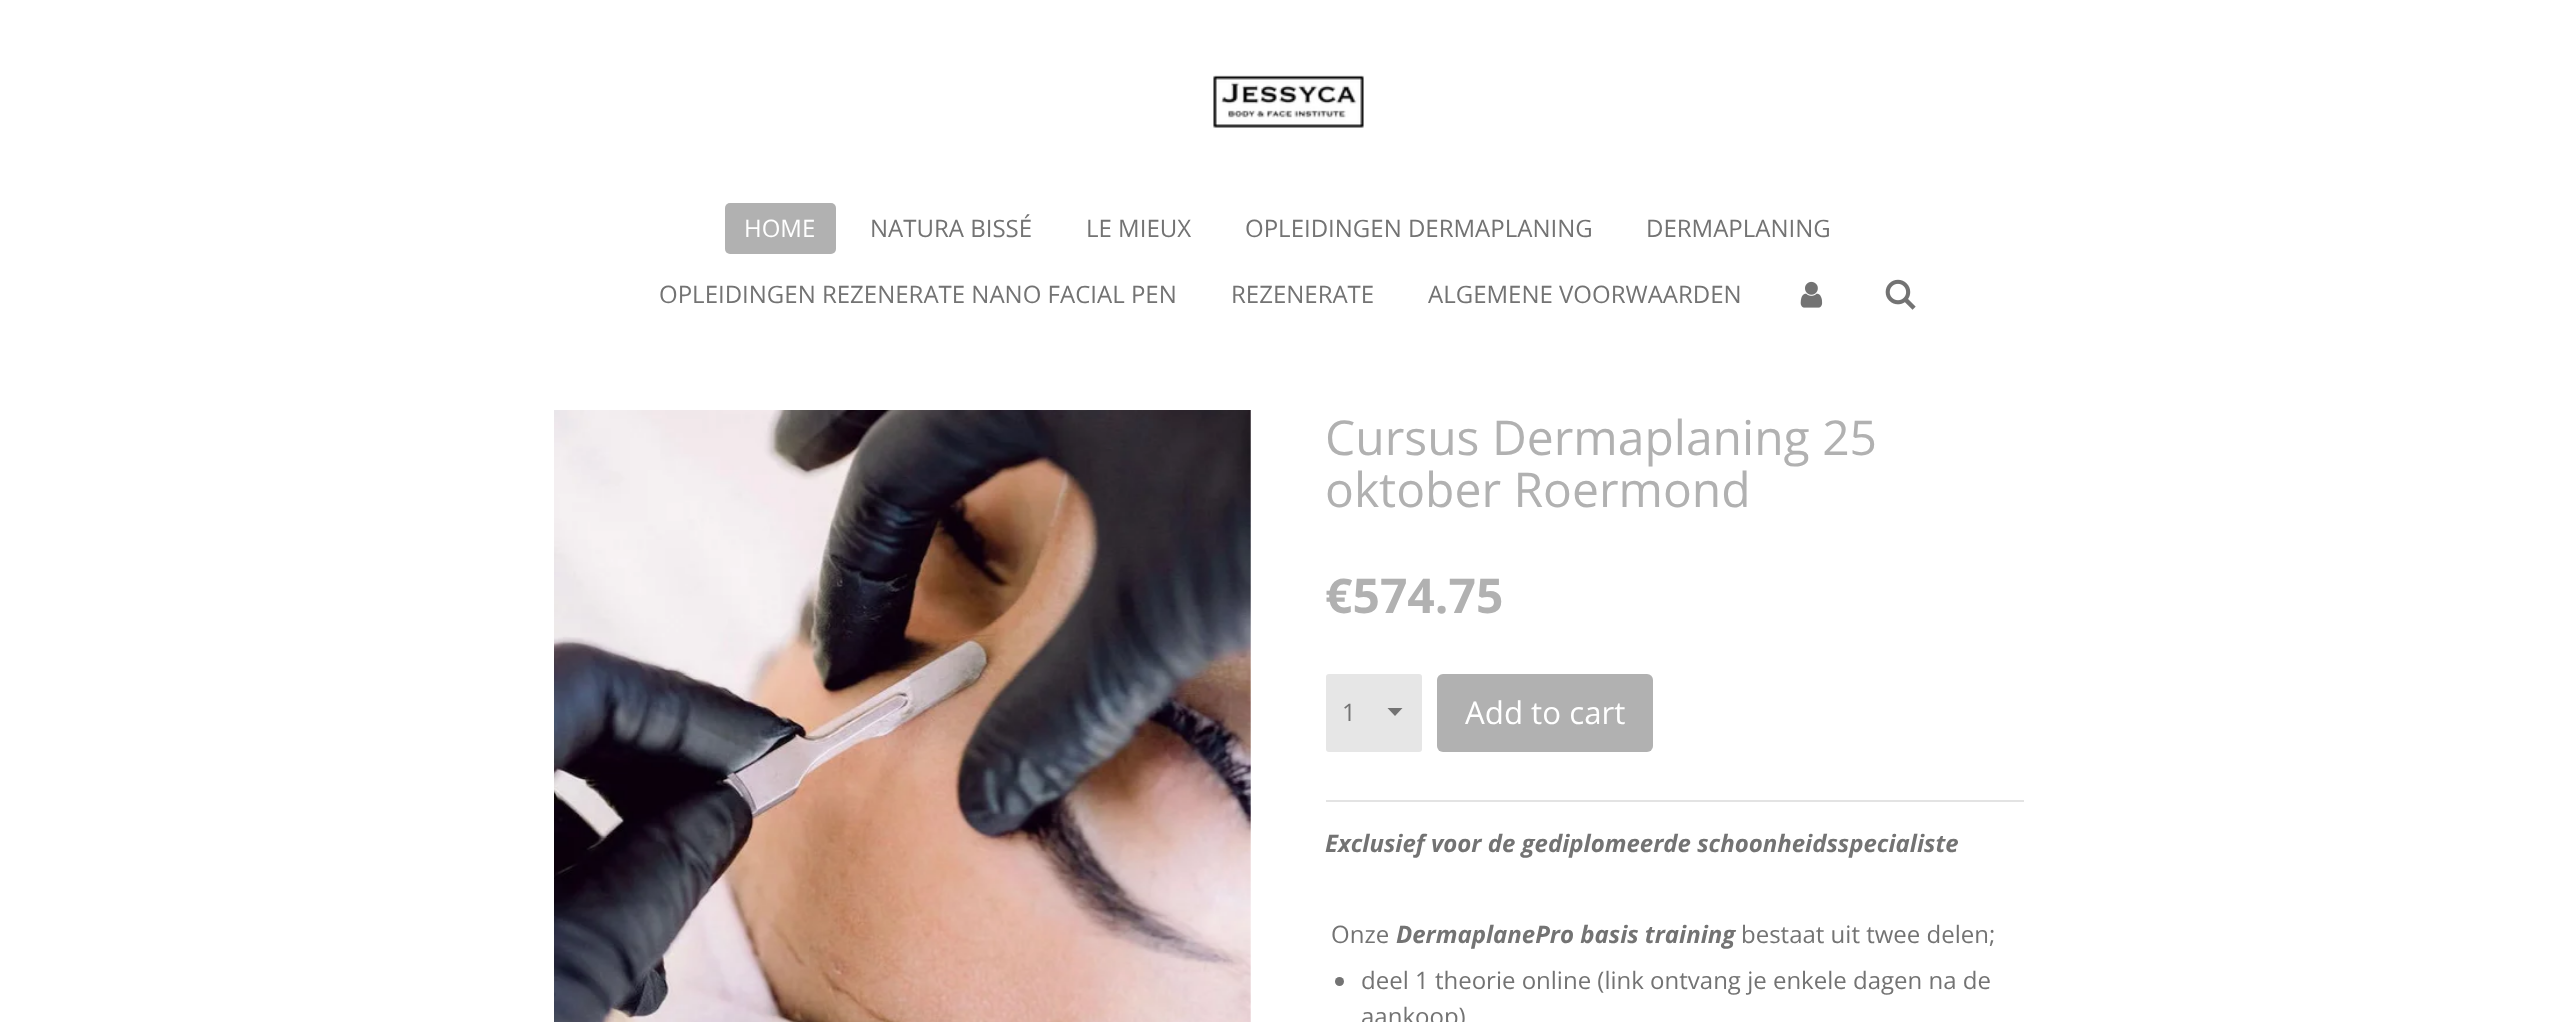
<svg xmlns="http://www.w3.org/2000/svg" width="2575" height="1022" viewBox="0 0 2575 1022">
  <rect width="100%" height="100%" fill="#fff"/>
  <image x="1213" y="75" width="151" height="53" href="img/1.png"/>
  <rect x="725" y="203" width="111" height="51" rx="5" fill="#b1b1b1"/>
  <image x="1800" y="281" width="23" height="27" href="img/2.png"/>
  <image x="1885" y="279" width="31" height="31" href="img/3.png"/>
  <image x="554" y="410" width="697" height="612" href="img/4.png"/>
  <rect x="1326" y="674" width="96" height="78" rx="3" fill="#e6e6e6"/>
  <path d="M1395 716L1387.5 708H1402.5Z" fill="#737373"/>
  <rect x="1437" y="674" width="216" height="78" rx="6" fill="#b1b1b1"/>
  <path d="M1326 800h698v2H1326z" fill="#e3e3e3"/>
  <circle cx="1339.5" cy="981.5" r="4.5" fill="#737373"/>
  <text x="744" y="237" font-family="Open Sans" font-size="24" fill="#fff">HOME</text>
  <g font-family="Open Sans" font-size="24" fill="#737373">
    <text x="870" y="237">NATURA BISSÉ</text>
    <text x="1086" y="237">LE MIEUX</text>
    <text x="1245" y="237">OPLEIDINGEN DERMAPLANING</text>
    <text x="1646" y="237">DERMAPLANING</text>
    <text x="659" y="303">OPLEIDINGEN REZENERATE NANO FACIAL PEN</text>
    <text x="1231" y="303">REZENERATE</text>
    <text x="1428" y="303">ALGEMENE VOORWAARDEN</text>
  </g>
  <g font-family="Open Sans" font-size="48" fill="#b1b1b1">
    <text x="1325" y="455">Cursus Dermaplaning 25</text>
    <text x="1325" y="507">oktober Roermond</text>
  </g>
  <text x="1325" y="613" font-family="Open Sans" font-size="48" font-weight="bold" fill="#b1b1b1">€574.75</text>
  <text x="1342" y="721" font-family="Open Sans" font-size="24" fill="#737373">1</text>
  <text x="1465" y="724" font-family="Open Sans" font-size="31.25" fill="#fff">Add to cart</text>
  <text x="1325" y="852" font-family="Open Sans" font-size="24" font-weight="bold" font-style="italic" fill="#737373">Exclusief voor de gediplomeerde schoonheidsspecialiste</text>
  <text x="1331" y="943" font-family="Open Sans" font-size="24" fill="#737373">Onze</text>
  <text x="1396" y="943" font-family="Open Sans" font-size="24" font-weight="bold" font-style="italic" fill="#737373">DermaplanePro basis training</text>
  <g font-family="Open Sans" font-size="24" fill="#737373">
    <text x="1741" y="943">bestaat uit twee delen;</text>
    <text x="1361" y="989">deel 1 theorie online (link ontvang je enkele dagen na de</text>
    <text x="1361" y="1025">aankoop)</text>
  </g>
</svg>
